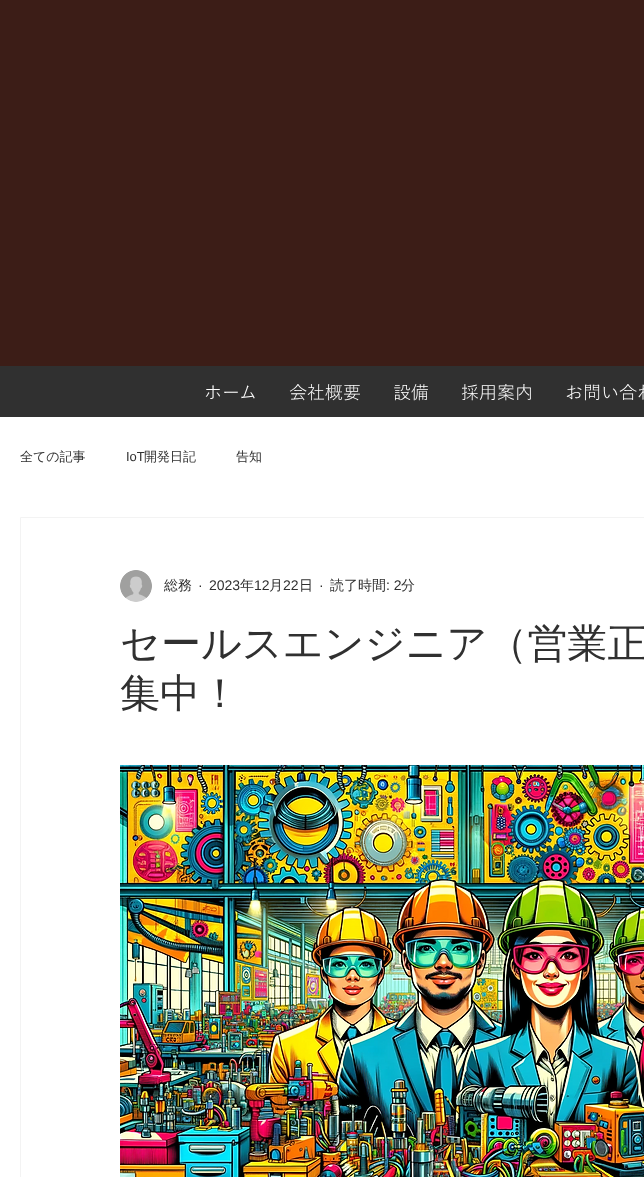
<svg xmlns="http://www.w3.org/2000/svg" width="644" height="1177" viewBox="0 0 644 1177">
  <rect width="100%" height="100%" fill="#303030"/>
  <path d="M0 0h644v366H0z" fill="#3c1d17"/>
  <path d="M0 417h644v760H0z" fill="#fff"/>
  <path d="M20.5 517.5h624v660H20.5z" fill="none" stroke="#f3f3f3"/>
  <image x="120" y="570" width="32" height="32" href="img/1.png"/>
  <image x="120" y="765" width="524" height="412" href="img/2.png"/>
  <g font-family="'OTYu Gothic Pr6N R'" font-size="18" fill="#fff">
    <text x="204" y="399">ホーム</text>
    <text x="289" y="399">会社概要</text>
    <text x="393" y="399">設備</text>
    <text x="461" y="399">採用案内</text>
    <text x="565" y="399">お問い合わ</text>
  </g>
  <text x="20" y="461" font-family="WenQuanYi Zen Hei" font-size="13" font-weight="500" fill="#303030">全ての記事</text>
  <text x="126" y="461" font-family="Liberation Sans" font-size="13" fill="#303030">IoT</text>
  <g font-family="WenQuanYi Zen Hei" font-size="13" font-weight="500" fill="#303030">
    <text x="144" y="461">開発日記</text>
    <text x="236" y="461">告知</text>
  </g>
  <text x="164" y="590" font-family="WenQuanYi Zen Hei" font-size="14" font-weight="500" fill="#303030">総務</text>
  <g font-family="Liberation Sans" font-size="14" fill="#303030">
    <text x="198" y="590">·</text>
    <text x="209" y="590">2023</text>
  </g>
  <text x="240" y="590" font-family="WenQuanYi Zen Hei" font-size="14" font-weight="500" fill="#303030">年</text>
  <text x="254" y="590" font-family="Liberation Sans" font-size="14" fill="#303030">12</text>
  <text x="269" y="590" font-family="WenQuanYi Zen Hei" font-size="14" font-weight="500" fill="#303030">月</text>
  <text x="283" y="590" font-family="Liberation Sans" font-size="14" fill="#303030">22</text>
  <text x="299" y="590" font-family="WenQuanYi Zen Hei" font-size="14" font-weight="500" fill="#303030">日</text>
  <text x="319" y="590" font-family="Liberation Sans" font-size="14" fill="#303030">·</text>
  <text x="330" y="590" font-family="WenQuanYi Zen Hei" font-size="14" font-weight="500" fill="#303030">読了時間</text>
  <text x="386" y="590" font-family="Liberation Sans" font-size="14" fill="#303030">: 2</text>
  <text x="401" y="590" font-family="WenQuanYi Zen Hei" font-size="14" font-weight="500" fill="#303030">分</text>
  <g font-family="WenQuanYi Zen Hei" font-size="40" font-weight="500" fill="#303030">
    <text x="120" y="657">セールスエンジニア（営業正</text>
    <text x="120" y="707">集中！</text>
  </g>
</svg>
